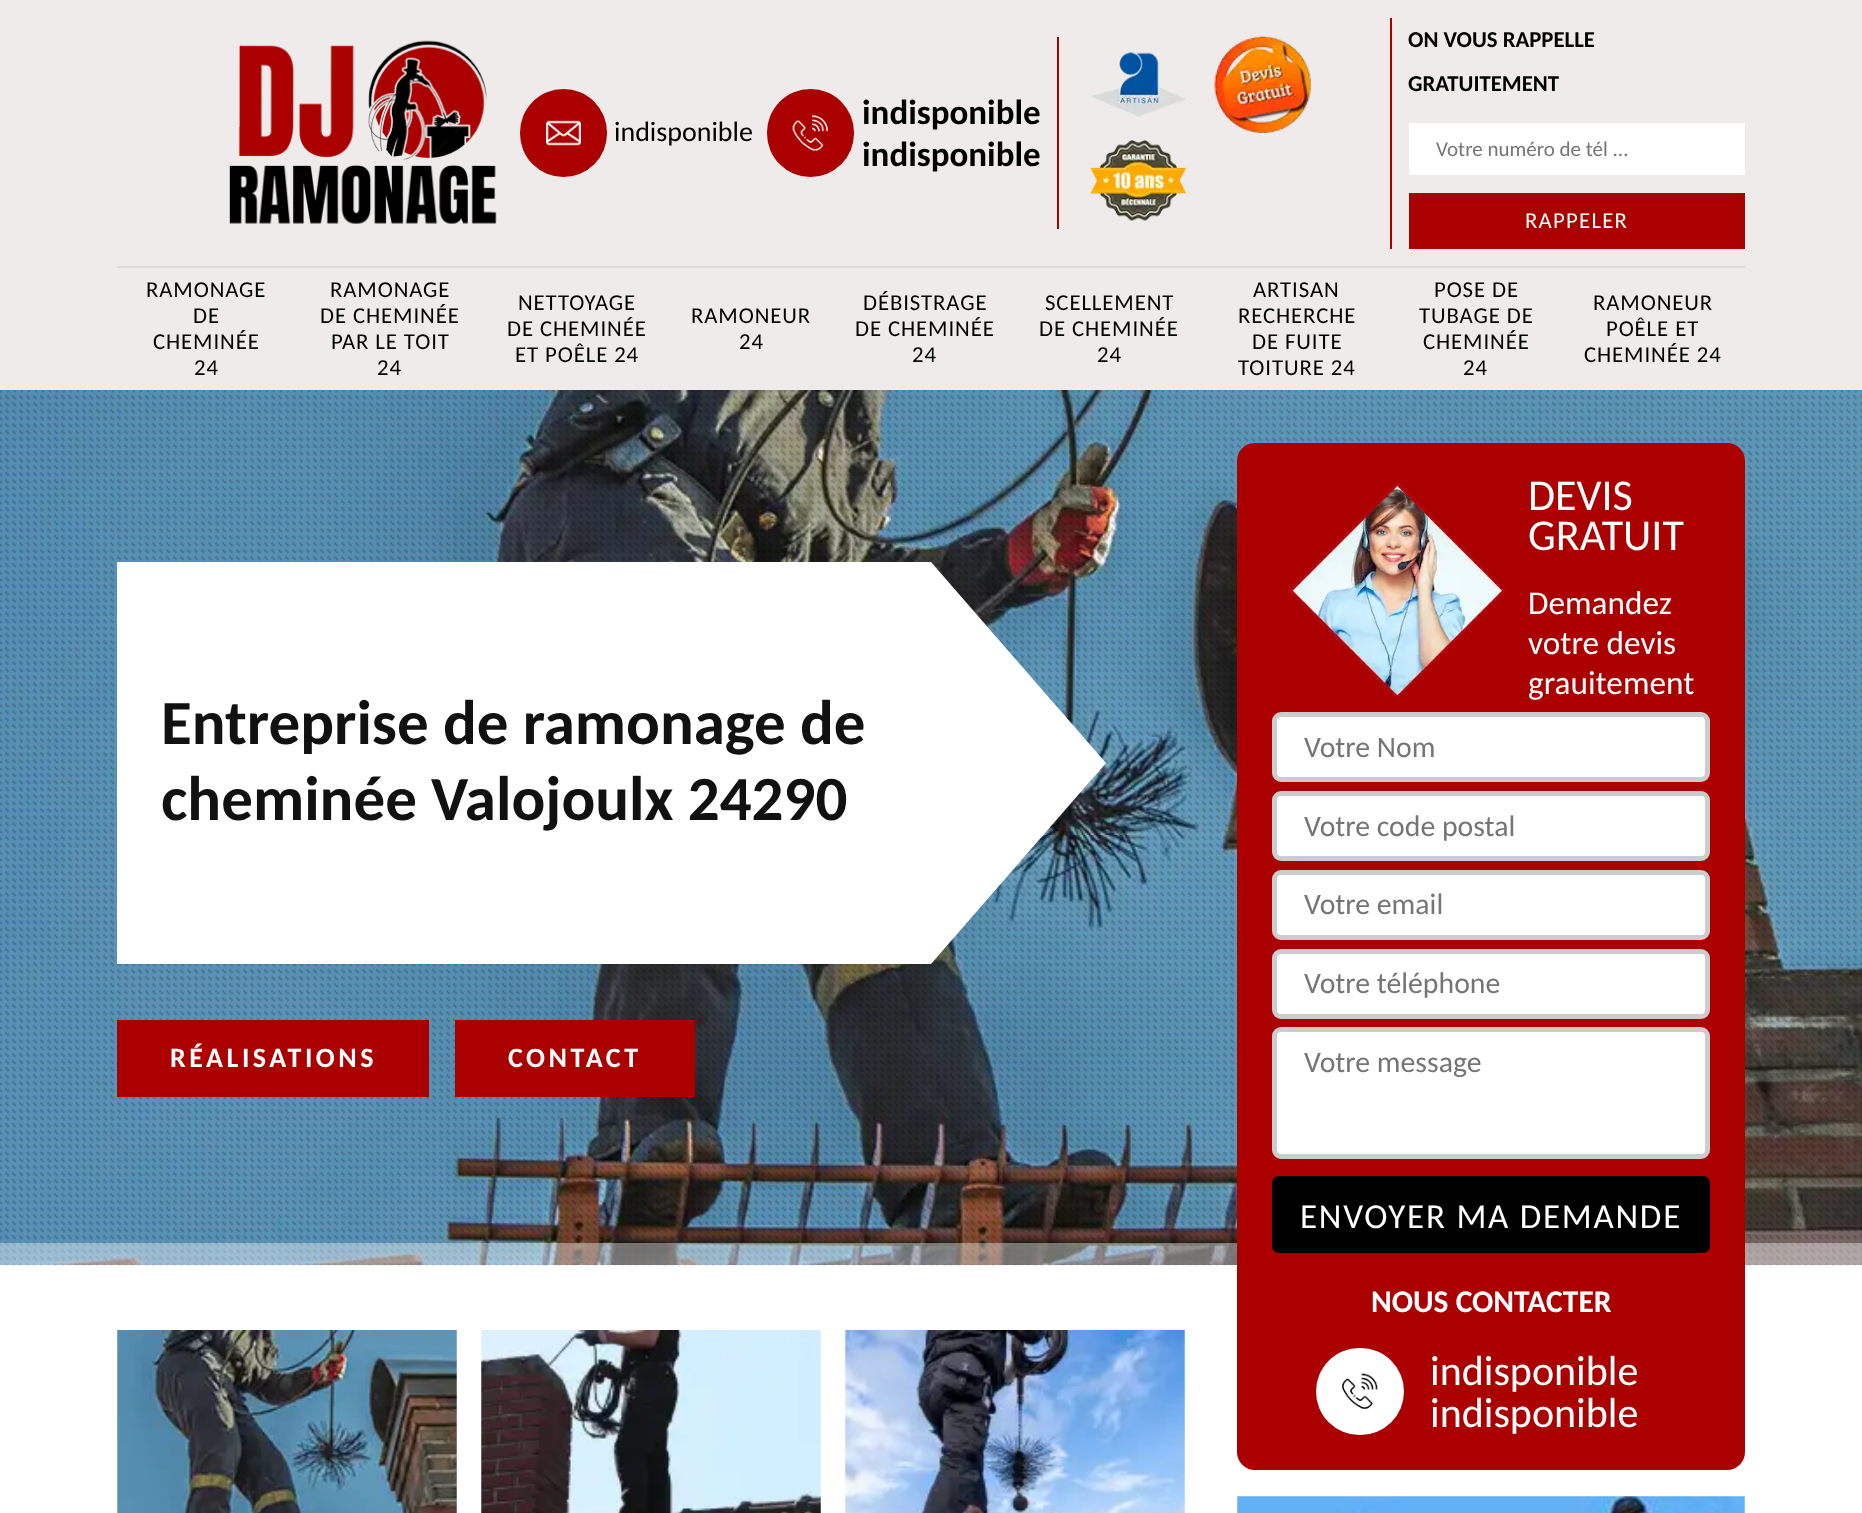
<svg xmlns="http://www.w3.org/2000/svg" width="1862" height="1513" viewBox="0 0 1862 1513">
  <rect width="100%" height="100%" fill="#fff"/>
  <path d="M0 0h1862v390H0z" fill="#efebeb"/>
  <image x="229" y="40" width="268" height="184" href="img/1.png"/>
  <rect x="520" y="89" width="87" height="88" rx="43.5" fill="#ab0000"/>
  <image x="546" y="120" width="35" height="26" href="img/2.png"/>
  <rect x="767" y="89" width="87" height="88" rx="43.5" fill="#ab0000"/>
  <image x="792" y="115" width="36" height="36" href="img/3.png"/>
  <path d="M1057 37h2v192H1057z" fill="#ab0000"/>
  <image x="1091" y="52" width="95" height="65" href="img/4.png"/>
  <image x="1214" y="36" width="97" height="97" href="img/5.png"/>
  <image x="1090" y="140" width="97" height="81" href="img/6.png"/>
  <path d="M1390 18h2v231H1390z" fill="#ab0000"/>
  <path d="M1409 123h336v52H1409z" fill="#fff"/>
  <path d="M1409 193h336v56H1409z" fill="#ab0000"/>
  <path d="M117 266h1628v2H117z" fill="#ddd"/>
  <image x="0" y="390" width="1862" height="875" href="img/7.png"/>
  <image x="0" y="390" width="1862" height="876" href="img/8.png"/>
  <path d="M117 562h814v402H117z" fill="#fff"/>
  <path d="M931 964V562L1106 763Z" fill="#fff"/>
  <path d="M117 1020h312v77H117z" fill="#ab0000"/>
  <path d="M455 1020h240v77H455z" fill="#ab0000"/>
  <image x="117" y="1330" width="340" height="183" href="img/9.png"/>
  <image x="481" y="1330" width="340" height="183" href="img/10.png"/>
  <image x="845" y="1330" width="340" height="183" href="img/11.png"/>
  <path d="M0 1243h1862v23H0z" fill="#ffffff69"/>
  <rect x="1237" y="443" width="508" height="1027" rx="18" fill="#ab0000"/>
  <image x="1289" y="482" width="217" height="217" href="img/12.png"/>
  <rect x="1274.5" y="714.5" width="433" height="65" rx="6.5" fill="#fff" stroke="#ccc" stroke-width="5"/>
  <rect x="1274.5" y="793.5" width="433" height="65" rx="6.5" fill="#fff" stroke="#ccc" stroke-width="5"/>
  <rect x="1274.5" y="872.5" width="433" height="65" rx="6.5" fill="#fff" stroke="#ccc" stroke-width="5"/>
  <rect x="1274.5" y="951.5" width="433" height="65" rx="6.5" fill="#fff" stroke="#ccc" stroke-width="5"/>
  <rect x="1274.5" y="1029.5" width="433" height="127" rx="6.5" fill="#fff" stroke="#ccc" stroke-width="5"/>
  <rect x="1272" y="1176" width="438" height="77" rx="7" fill="#000"/>
  <rect x="1316" y="1348" width="88" height="87" rx="43.5" fill="#fff"/>
  <image x="1342" y="1373" width="36" height="36" href="img/13.png"/>
  <image x="1237" y="1496" width="508" height="17" href="img/14.png"/>
  <text x="614" y="141" font-family="Carlito" font-size="28" fill="#000">indisponible</text>
  <g font-family="Carlito" font-size="35" font-weight="bold" fill="#000">
    <text x="862" y="124">indisponible</text>
    <text x="862" y="166">indisponible</text>
  </g>
  <g font-family="Carlito" font-size="22.75" font-weight="bold" fill="#000">
    <text x="1408" y="47">ON VOUS RAPPELLE</text>
    <text x="1408" y="91">GRATUITEMENT</text>
  </g>
  <text x="1436" y="156" font-family="Carlito" font-size="21" fill="#757575">Votre numéro de tél ...</text>
  <text x="1525" y="228" font-family="Carlito" font-size="22.75" letter-spacing="1.25" fill="#fff">RAPPELER</text>
  <g font-family="Carlito" font-size="22.75" letter-spacing="0.9" fill="#000">
    <text x="146" y="297">RAMONAGE</text>
    <text x="193" y="323">DE</text>
    <text x="153" y="349">CHEMINÉE</text>
    <text x="194" y="375">24</text>
    <text x="330" y="297">RAMONAGE</text>
    <text x="320" y="323">DE CHEMINÉE</text>
    <text x="331" y="349">PAR LE TOIT</text>
    <text x="377" y="375">24</text>
    <text x="518" y="310">NETTOYAGE</text>
    <text x="507" y="336">DE CHEMINÉE</text>
    <text x="515" y="362">ET POÊLE 24</text>
    <text x="691" y="323">RAMONEUR</text>
    <text x="739" y="349">24</text>
    <text x="863" y="310">DÉBISTRAGE</text>
    <text x="855" y="336">DE CHEMINÉE</text>
    <text x="912" y="362">24</text>
    <text x="1045" y="310">SCELLEMENT</text>
    <text x="1039" y="336">DE CHEMINÉE</text>
    <text x="1097" y="362">24</text>
    <text x="1253" y="297">ARTISAN</text>
    <text x="1238" y="323">RECHERCHE</text>
    <text x="1252" y="349">DE FUITE</text>
    <text x="1238" y="375">TOITURE 24</text>
    <text x="1434" y="297">POSE DE</text>
    <text x="1419" y="323">TUBAGE DE</text>
    <text x="1423" y="349">CHEMINÉE</text>
    <text x="1463" y="375">24</text>
    <text x="1593" y="310">RAMONEUR</text>
    <text x="1606" y="336">POÊLE ET</text>
    <text x="1584" y="362">CHEMINÉE 24</text>
  </g>
  <g font-family="Carlito" font-size="63" font-weight="bold" fill="#111">
    <text x="161" y="744">Entreprise de ramonage de</text>
    <text x="161" y="820">cheminée Valojoulx 24290</text>
  </g>
  <g font-family="Carlito" font-size="28" font-weight="bold" letter-spacing="3.5" fill="#fff">
    <text x="170" y="1067">RÉALISATIONS</text>
    <text x="508" y="1067">CONTACT</text>
  </g>
  <g font-family="Carlito" font-size="44" fill="#fff">
    <text x="1528" y="510">DEVIS</text>
    <text x="1528" y="550">GRATUIT</text>
  </g>
  <g font-family="Carlito" font-size="33.25" fill="#fff">
    <text x="1528" y="614">Demandez</text>
    <text x="1528" y="654">votre devis</text>
    <text x="1528" y="694">grauitement</text>
  </g>
  <g font-family="Carlito" font-size="29.75" fill="#757575">
    <text x="1304" y="757">Votre Nom</text>
    <text x="1304" y="836">Votre code postal</text>
    <text x="1304" y="914">Votre email</text>
    <text x="1304" y="993">Votre téléphone</text>
    <text x="1304" y="1072">Votre message</text>
  </g>
  <text x="1300" y="1228" font-family="Carlito" font-size="35" letter-spacing="1.75" fill="#fff">ENVOYER MA DEMANDE</text>
  <text x="1371" y="1312" font-family="Carlito" font-size="31.5" font-weight="bold" fill="#fff">NOUS CONTACTER</text>
  <g font-family="Carlito" font-size="42" fill="#fff">
    <text x="1430" y="1385">indisponible</text>
    <text x="1430" y="1427">indisponible</text>
  </g>
</svg>
